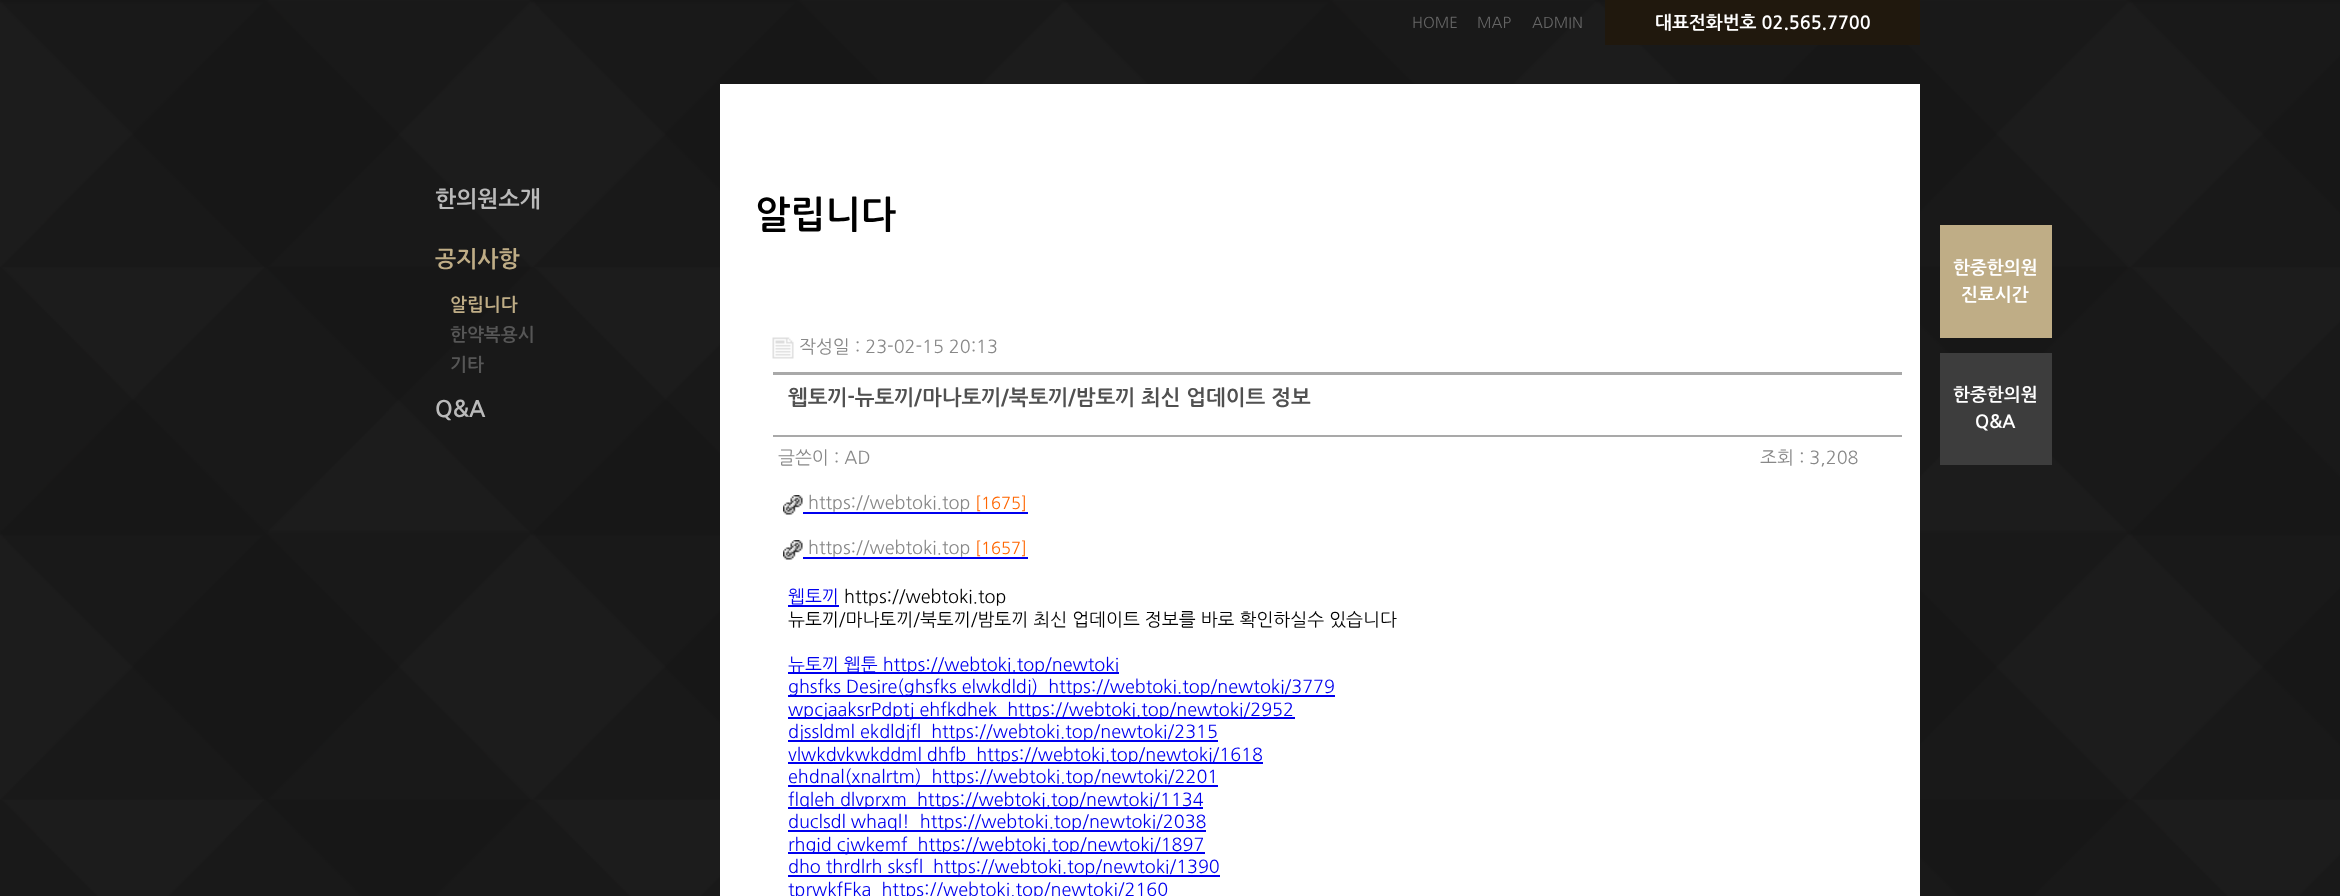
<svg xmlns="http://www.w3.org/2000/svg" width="2340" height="896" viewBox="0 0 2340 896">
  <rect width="100%" height="100%" fill="#fff"/>
  <image x="0" y="0" width="2340" height="896" href="img/1.png"/>
  <path d="M1605 0h315v45H1605z" fill="#20180d"/>
  <path d="M720 84h1200v812H720z" fill="#fff"/>
  <image x="772" y="337" width="22" height="22" href="img/2.png"/>
  <path d="M773 372h1129v3H773z" fill="#a9a9a9"/>
  <path d="M773 435h1129v2H773z" fill="#a9a9a9"/>
  <image x="783" y="495" width="20" height="20" href="img/3.png"/>
  <path d="M803 512h225v2H803z" fill="#00e"/>
  <image x="783" y="540" width="20" height="20" href="img/3.png"/>
  <path d="M803 557h225v2H803z" fill="#00e"/>
  <path d="M788 605h51v2H788z" fill="#00e"/>
  <path d="M788 672h331v2H788z" fill="#00e"/>
  <path d="M788 695h547v2H788z" fill="#00e"/>
  <path d="M788 717h507v2H788z" fill="#00e"/>
  <path d="M788 740h430v2H788z" fill="#00e"/>
  <path d="M788 762h475v2H788z" fill="#00e"/>
  <path d="M788 785h430v2H788z" fill="#00e"/>
  <path d="M788 807h415v2H788z" fill="#00e"/>
  <path d="M788 830h418v2H788z" fill="#00e"/>
  <path d="M788 852h417v2H788z" fill="#00e"/>
  <path d="M788 875h432v2H788z" fill="#00e"/>
  <path d="M1940 225h112v113H1940z" fill="#bfad86"/>
  <path d="M1940 353h112v112H1940z" fill="#3d3d3d"/>
  <g font-family="NanumGothic" font-size="15" fill="#666">
    <text x="1412" y="28">HOME</text>
    <text x="1477" y="28">MAP</text>
    <text x="1532" y="28">ADMIN</text>
  </g>
  <text x="1655" y="29" font-family="NanumGothic" font-size="18" font-weight="bold" fill="#fff">대표전화번호 02.565.7700</text>
  <text x="435" y="207" font-family="NanumGothic" font-size="22.5" font-weight="bold" fill="#bababa">한의원소개</text>
  <text x="435" y="267" font-family="NanumGothic" font-size="22.5" font-weight="bold" fill="#bfad86">공지사항</text>
  <text x="450" y="311" font-family="NanumGothic" font-size="18" font-weight="bold" fill="#bfad86">알립니다</text>
  <g font-family="NanumGothic" font-size="18" font-weight="bold" fill="#565656">
    <text x="450" y="341">한약복용시</text>
    <text x="450" y="371">기타</text>
  </g>
  <text x="435" y="417" font-family="NanumGothic" font-size="22.5" font-weight="bold" fill="#bababa">Q&amp;A</text>
  <text x="755" y="228" font-family="NanumGothic" font-size="37.5" font-weight="bold" fill="#000">알립니다</text>
  <text x="799" y="353" font-family="NanumGothic" font-size="18" fill="#888">작성일 : 23-02-15 20:13</text>
  <text x="788" y="405" font-family="NanumGothic" font-size="21" font-weight="bold" fill="#505050">웹토끼-뉴토끼/마나토끼/북토끼/밤토끼 최신 업데이트 정보</text>
  <g font-family="NanumGothic" font-size="18" fill="#888">
    <text x="778" y="464">글쓴이 : AD</text>
    <text x="1760" y="464">조회 : 3,208</text>
    <text x="808" y="509">https://webtoki.top</text>
  </g>
  <text x="975" y="509" font-family="NanumGothic" font-size="16.5" fill="#f60">[1675]</text>
  <text x="808" y="554" font-family="NanumGothic" font-size="18" fill="#888">https://webtoki.top</text>
  <text x="975" y="554" font-family="NanumGothic" font-size="16.5" fill="#f60">[1657]</text>
  <text x="788" y="603" font-family="NanumGothic" font-size="18" fill="#00e">웹토끼</text>
  <g font-family="NanumGothic" font-size="18" fill="#000">
    <text x="844" y="603">https://webtoki.top</text>
    <text x="788" y="626">뉴토끼/마나토끼/북토끼/밤토끼 최신 업데이트 정보를 바로 확인하실수 있습니다</text>
  </g>
  <g font-family="NanumGothic" font-size="18" fill="#00e">
    <text x="788" y="671">뉴토끼 웹툰 https://webtoki.top/newtoki</text>
    <text x="788" y="693" xml:space="preserve">ghsfks Desire(ghsfks elwkdldj)  https://webtoki.top/newtoki/3779</text>
    <text x="788" y="716" xml:space="preserve">wpcjaaksrPdptj ehfkdhek  https://webtoki.top/newtoki/2952</text>
    <text x="788" y="738" xml:space="preserve">djssldml ekdldjfl  https://webtoki.top/newtoki/2315</text>
    <text x="788" y="761" xml:space="preserve">vlwkdvkwkddml dhfb  https://webtoki.top/newtoki/1618</text>
    <text x="788" y="783" xml:space="preserve">ehdnal(xnalrtm)  https://webtoki.top/newtoki/2201</text>
    <text x="788" y="806" xml:space="preserve">flqleh dlvprxm  https://webtoki.top/newtoki/1134</text>
    <text x="788" y="828" xml:space="preserve">duclsdl whaql!  https://webtoki.top/newtoki/2038</text>
    <text x="788" y="851" xml:space="preserve">rhgid cjwkemf  https://webtoki.top/newtoki/1897</text>
    <text x="788" y="873" xml:space="preserve">dho thrdlrh sksfl  https://webtoki.top/newtoki/1390</text>
    <text x="788" y="896" xml:space="preserve">tprwkfFka  https://webtoki.top/newtoki/2160</text>
  </g>
  <g font-family="NanumGothic" font-size="18" font-weight="bold" fill="#fff">
    <text x="1953" y="274">한중한의원</text>
    <text x="1961" y="301">진료시간</text>
    <text x="1953" y="401">한중한의원</text>
    <text x="1975" y="428">Q&amp;A</text>
  </g>
</svg>
